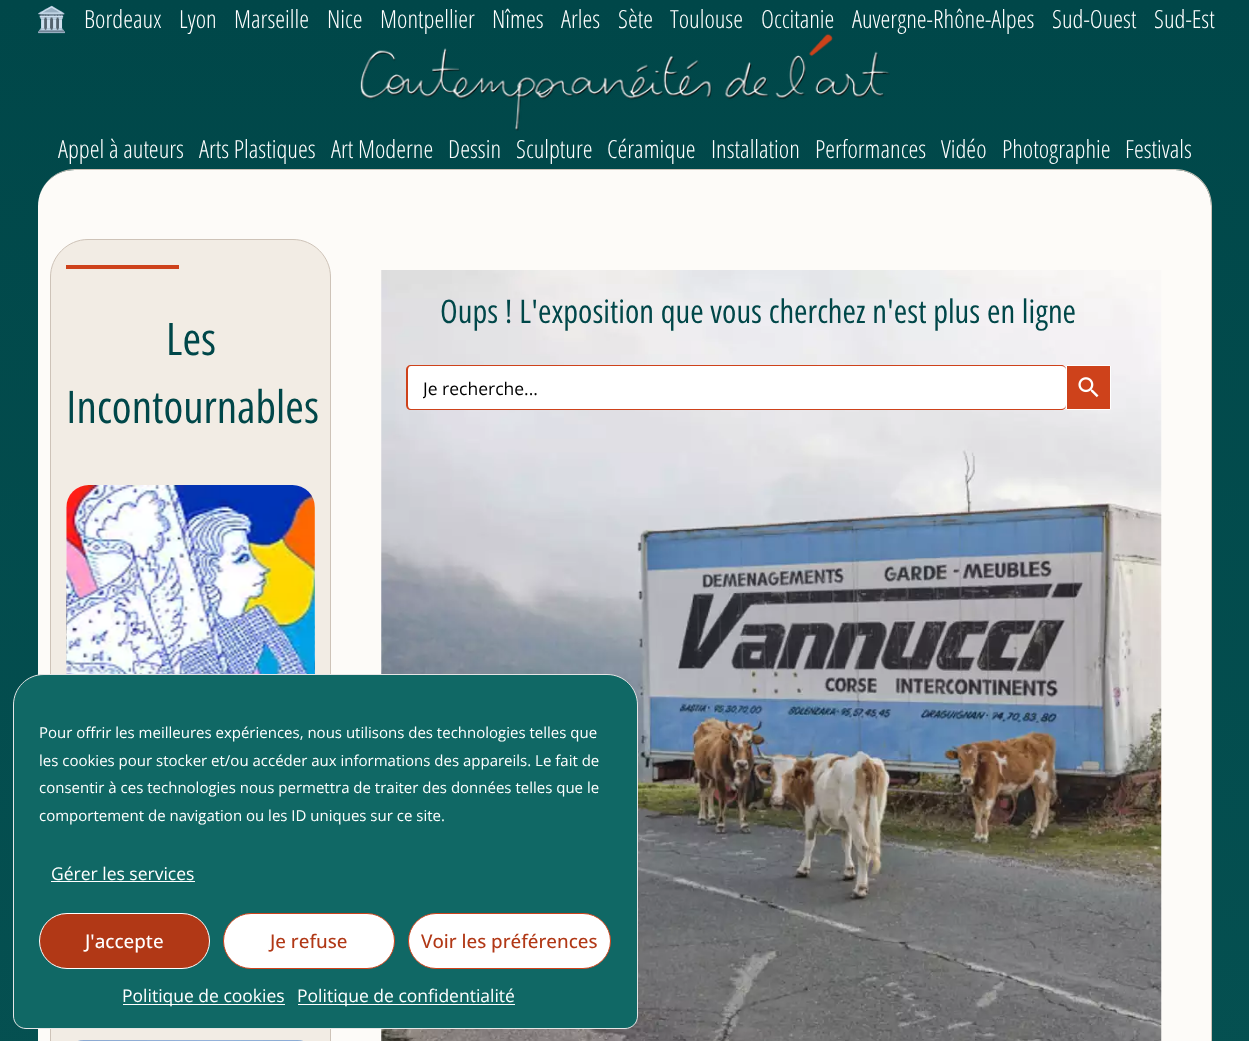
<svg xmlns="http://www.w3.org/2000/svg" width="1249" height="1041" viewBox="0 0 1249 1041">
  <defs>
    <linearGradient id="g1" gradientUnits="userSpaceOnUse" x1="625" y1="0" x2="625" y2="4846"><stop offset="0" stop-color="#004749"/><stop offset="1" stop-color="#16706d"/></linearGradient>
    <clipPath id="clip1"><path d="M423 376h628v24H423z"/></clipPath>
  </defs>
  <rect width="100%" height="100%" fill="#fff"/>
  <path d="M0 0h1249v1041H0z" fill="url(#g1)"/>
  <image x="360" y="33" width="530" height="98" href="img/1.png"/>
  <path d="M75 170H1175C1195 170 1211 186 1211 206V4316C1211 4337 1195 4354 1175 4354H75C54 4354 38 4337 38 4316V206C38 186 54 170 75 170Z" fill="#fdfbf8"/>
  <path d="M75 169H1175C1196 169 1212 186 1212 206V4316C1212 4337 1196 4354 1175 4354H75C54 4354 38 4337 38 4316V206C38 186 54 169 75 169ZM75 170H1175C1195 170 1211 186 1211 206V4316C1211 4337 1195 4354 1175 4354H75C54 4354 38 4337 38 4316V206C38 186 54 170 75 170Z" fill="#cec3b8" fill-rule="evenodd"/>
  <path d="M88 239.5H293C313.5 239.5 330.5 256.5 330.5 277V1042C330.5 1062.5 313.5 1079.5 293 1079.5H80C63.5 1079.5 50.5 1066.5 50.5 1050V277C50.5 256.5 67.5 239.5 88 239.5Z" fill="#f2ece4" stroke="#cec3b8"/>
  <path d="M66 265h113v4H66z" fill="#ce421b"/>
  <image x="66" y="485" width="249" height="189" href="img/2.png"/>
  <image x="66" y="485" width="249" height="189" href="img/3.png"/>
  <image x="78" y="1040" width="225" height="1" href="img/4.png"/>
  <image x="381" y="270" width="781" height="771" href="img/5.png"/>
  <rect x="406" y="365" width="660" height="45" rx="5" fill="#fff"/>
  <path d="M411 365H1061C1064 365 1066 367 1066 370V405C1066 408 1064 410 1061 410H411C408 410 406 408 406 405V370C406 367 408 365 411 365ZM411 366H1061C1064 366 1066 368 1066 370V405C1066 407 1064 409 1061 409H411C409 409 408 407 408 405V370C408 368 409 366 411 366Z" fill="#ce421b" fill-rule="evenodd"/>
  <path d="M1066.5 365.5h44v44H1066.5z" fill="#ce421b" stroke="#fff"/>
  <image x="1078" y="377" width="21" height="21" href="img/6.png"/>
  <path d="M44 674.5H607C624 674.5 637.5 688 637.5 705V1016C637.5 1023 632 1028.5 625 1028.5H26C19 1028.5 13.5 1023 13.5 1016V705C13.5 688 27 674.5 44 674.5Z" fill="#106865" stroke="#e6e6e6"/>
  <path d="M51 881h144v1H51z" fill="#fff"/>
  <rect x="39.5" y="913.5" width="170" height="55" rx="27.5" fill="#b13816" stroke="#fff"/>
  <rect x="223.5" y="913.5" width="171" height="55" rx="27.5" fill="#fff" stroke="#ce421b"/>
  <rect x="408.5" y="913.5" width="202" height="55" rx="27.5" fill="#fff" stroke="#ce421b"/>
  <path d="M123 1004h162v1H123z" fill="#fff"/>
  <path d="M298 1004h217v1H298z" fill="#fff"/>
  <text x="36" y="28" font-family="Noto Color Emoji" font-size="25" fill="#fff">🏛️</text>
  <g font-family="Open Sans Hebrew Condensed" font-size="25" font-weight="300" fill="#fff">
    <text x="84" y="28">Bordeaux</text>
    <text x="179" y="28">Lyon</text>
    <text x="234" y="28">Marseille</text>
    <text x="327" y="28">Nice</text>
    <text x="380" y="28">Montpellier</text>
    <text x="492" y="28">Nîmes</text>
    <text x="561" y="28">Arles</text>
    <text x="618" y="28">Sète</text>
    <text x="670" y="28">Toulouse</text>
    <text x="761" y="28">Occitanie</text>
    <text x="852" y="28">Auvergne-Rhône-Alpes</text>
    <text x="1052" y="28">Sud-Ouest</text>
    <text x="1154" y="28">Sud-Est</text>
    <text x="58" y="158">Appel à auteurs</text>
    <text x="199" y="158">Arts Plastiques</text>
    <text x="331" y="158">Art Moderne</text>
    <text x="448" y="158">Dessin</text>
    <text x="516" y="158">Sculpture</text>
    <text x="607" y="158">Céramique</text>
    <text x="711" y="158">Installation</text>
    <text x="815" y="158">Performances</text>
    <text x="941" y="158">Vidéo</text>
    <text x="1002" y="158">Photographie</text>
    <text x="1125" y="158">Festivals</text>
  </g>
  <g font-family="Open Sans Hebrew Condensed" font-size="45" fill="#004749">
    <text x="166" y="355">Les</text>
    <text x="66" y="423">Incontournables</text>
  </g>
  <text x="440" y="323" font-family="Open Sans Hebrew Condensed" font-size="32.5" fill="#004749">Oups ! L'exposition que vous cherchez n'est plus en ligne</text>
  <g clip-path="url(#clip1)">
    <text x="423" y="395" font-family="Open Sans" font-size="17.5" fill="#000">Je recherche...</text>
  </g>
  <g font-family="Open Sans" font-size="15" fill="#fff">
    <text x="39" y="738">Pour offrir les meilleures expériences, nous utilisons des technologies telles que</text>
    <text x="39" y="766">les cookies pour stocker et/ou accéder aux informations des appareils. Le fait de</text>
    <text x="39" y="793">consentir à ces technologies nous permettra de traiter des données telles que le</text>
    <text x="39" y="821">comportement de navigation ou les ID uniques sur ce site.</text>
  </g>
  <text x="51" y="880" font-family="Open Sans" font-size="17.5" fill="#fff">Gérer les services</text>
  <text x="85" y="948" font-family="Open Sans" font-size="18.75" font-weight="500" fill="#fff">J'accepte</text>
  <g font-family="Open Sans" font-size="18.75" font-weight="500" fill="#b13816">
    <text x="270" y="948">Je refuse</text>
    <text x="421" y="948">Voir les préférences</text>
  </g>
  <g font-family="Open Sans" font-size="17.5" fill="#fff">
    <text x="122" y="1002">Politique de cookies</text>
    <text x="297" y="1002">Politique de confidentialité</text>
  </g>
</svg>
